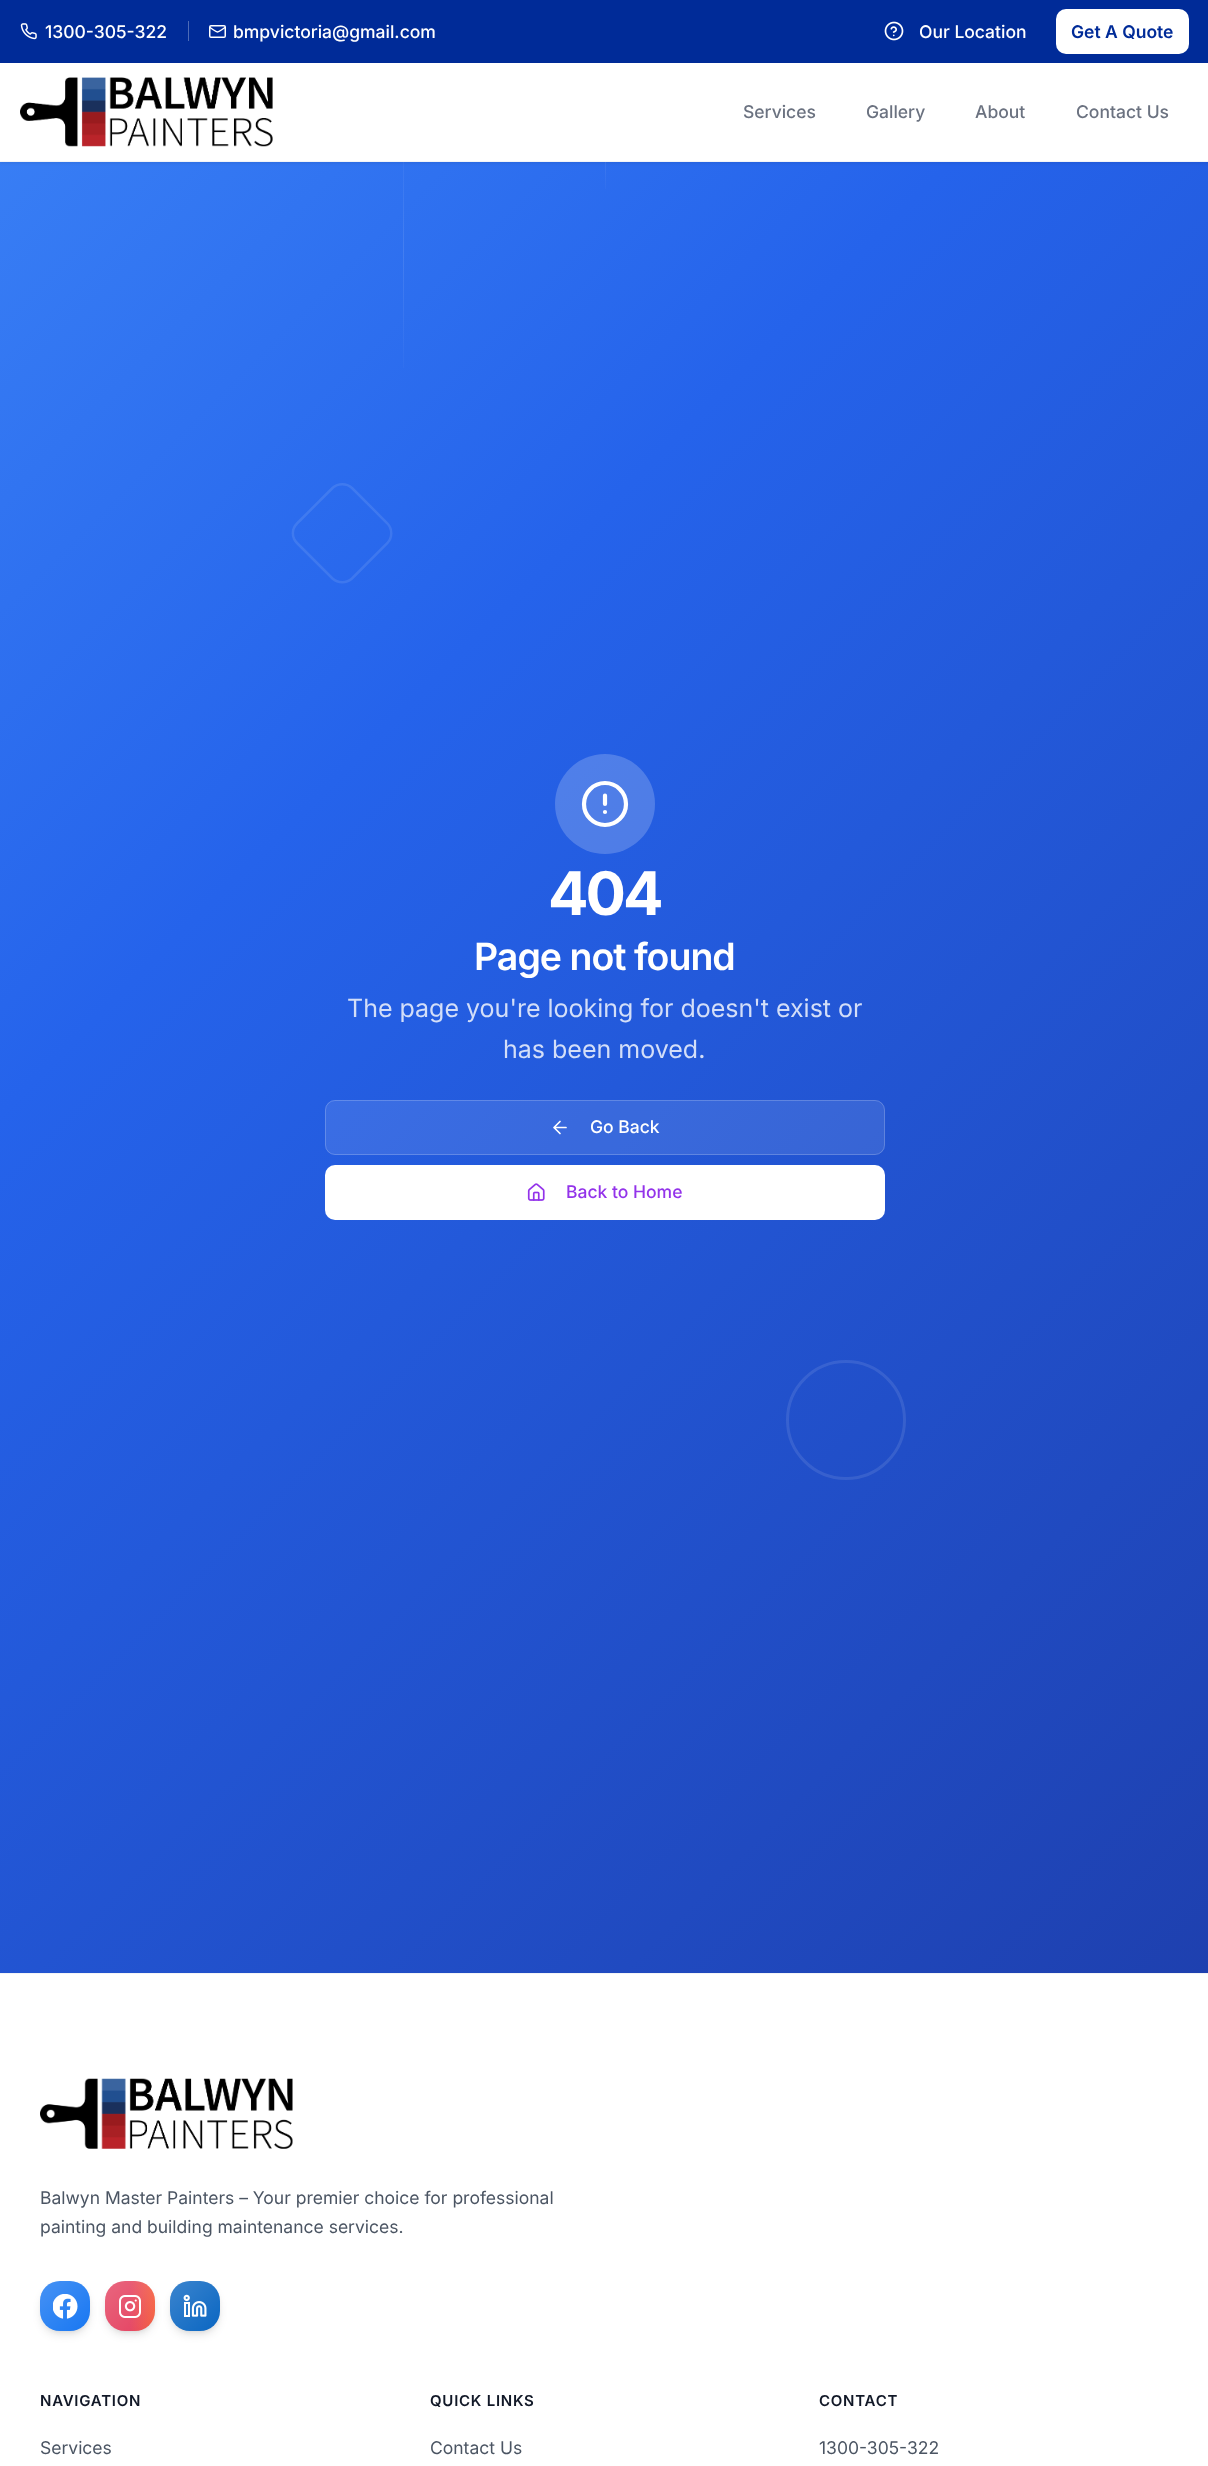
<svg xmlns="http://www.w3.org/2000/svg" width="1208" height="2466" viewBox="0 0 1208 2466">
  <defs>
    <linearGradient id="g1" gradientUnits="userSpaceOnUse" x1="-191" y1="191" x2="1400" y2="1782"><stop offset="0" stop-color="#3b82f6"/><stop offset="0.35" stop-color="#2563eb"/><stop offset="1" stop-color="#1e40af"/></linearGradient>
    <linearGradient id="g2" gradientUnits="userSpaceOnUse" x1="403" y1="100" x2="403" y2="400"><stop offset="0" stop-color="#fff" stop-opacity="0"/><stop offset="0.5" stop-color="#fff" stop-opacity="0.1"/><stop offset="1" stop-color="#fff" stop-opacity="0"/></linearGradient>
    <linearGradient id="g3" gradientUnits="userSpaceOnUse" x1="606" y1="0" x2="606" y2="200"><stop offset="0" stop-color="#fff" stop-opacity="0"/><stop offset="0.5" stop-color="#fff" stop-opacity="0.2"/><stop offset="1" stop-color="#fff" stop-opacity="0"/></linearGradient>
    <linearGradient id="g4" gradientUnits="userSpaceOnUse" x1="40" y1="2281" x2="90" y2="2331"><stop offset="0" stop-color="#fff" stop-opacity="0.2"/><stop offset="1" stop-color="#fff" stop-opacity="0"/></linearGradient>
    <linearGradient id="g5" gradientUnits="userSpaceOnUse" x1="105" y1="2306" x2="155" y2="2306"><stop offset="0" stop-color="#e4405f"/><stop offset="0.5" stop-color="#e4405f"/><stop offset="1" stop-color="#f56040"/></linearGradient>
    <linearGradient id="g6" gradientUnits="userSpaceOnUse" x1="105" y1="2281" x2="155" y2="2331"><stop offset="0" stop-color="#fff" stop-opacity="0.2"/><stop offset="1" stop-color="#fff" stop-opacity="0"/></linearGradient>
    <linearGradient id="g7" gradientUnits="userSpaceOnUse" x1="170" y1="2281" x2="220" y2="2331"><stop offset="0" stop-color="#fff" stop-opacity="0.2"/><stop offset="1" stop-color="#fff" stop-opacity="0"/></linearGradient>
  </defs>
  <rect width="100%" height="100%" fill="#fff"/>
  <path d="M0 0h1208v63H0z" fill="#002b98"/>
  <image x="20" y="23" width="17" height="17" href="img/1.png"/>
  <path d="M188 21h1v20H188z" fill="#4d6bb7"/>
  <rect x="209.75" y="25.75" width="15.5" height="11.5" rx="1.25" fill="none" stroke="#fff" stroke-width="1.5"/>
  <path d="M225 27.5C216 33.5 219 33.5 210 27.5" fill="none" stroke="#fff" stroke-width="1.5" stroke-linecap="round" stroke-linejoin="round"/>
  <image x="884" y="21" width="20" height="20" href="img/2.png"/>
  <rect x="1056" y="9" width="133" height="45" rx="10" fill="#fff"/>
  <path d="M0 162h1208v1811H0z" fill="url(#g1)"/>
  <path d="M403 162h1v206H403z" fill="url(#g2)"/>
  <path d="M605 162h1v27H605z" fill="url(#g3)"/>
  <path d="M0 64h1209v100H0z" fill="#0000000d" filter="blur(1px)"/>
  <path d="M0 63h1208v98H0z" fill="#fff"/>
  <path d="M0 161h1208v1H0z" fill="#f3f4f6"/>
  <image x="20" y="77" width="253" height="70" href="img/3.png"/>
  <path d="M352 488L387.5 523.5C392.5 529 392.5 537.5 387.5 543L352 578.5C346.5 583.5 338 583.5 332.5 578.5L297 543C291.5 537.5 291.5 529 297 523.5L332.5 488C338 483 346.5 483 352 488Z" fill="none" stroke="#ffffff1a" stroke-width="2.5"/>
  <circle cx="605" cy="804" r="50" fill="#ffffff33"/>
  <circle cx="605" cy="804" r="21" fill="none" stroke="#fff" stroke-width="4.2"/>
  <path d="M605 795.5V804M605 812H605" fill="none" stroke="#fff" stroke-width="4.2" stroke-linecap="round" stroke-linejoin="round"/>
  <rect x="325" y="1100" width="560" height="55" rx="10" fill="#ffffff1a"/>
  <rect x="325.5" y="1100.5" width="559" height="54" rx="9.5" fill="none" stroke="#ffffff33"/>
  <path d="M560 1133.5L554 1127.5L560 1121.5M566 1127.5H554" fill="none" stroke="#fff" stroke-width="1.7" stroke-linecap="round" stroke-linejoin="round"/>
  <rect x="325" y="1165" width="560" height="55" rx="10" fill="#fff"/>
  <image x="527" y="1183" width="18" height="18" href="img/4.png"/>
  <circle cx="846" cy="1420" r="58.5" fill="none" stroke="#ffffff1a" stroke-width="3"/>
  <path d="M0 1973h1208v1H0z" fill="#f3f4f6"/>
  <image x="40" y="2078" width="253" height="71" href="img/5.png"/>
  <rect x="43" y="2286" width="45" height="45" rx="18" fill="#0000001a" filter="blur(2.5px)"/>
  <rect x="41" y="2288" width="48" height="47" rx="19" fill="#0000001a" filter="blur(4px)"/>
  <rect x="40" y="2281" width="50" height="50" rx="20" fill="#1877f2"/>
  <rect x="40" y="2281" width="50" height="50" rx="20" fill="url(#g4)"/>
  <image x="53" y="2294" width="25" height="25" href="img/6.png"/>
  <rect x="108" y="2286" width="45" height="45" rx="18" fill="#0000001a" filter="blur(2.5px)"/>
  <rect x="106" y="2288" width="48" height="47" rx="19" fill="#0000001a" filter="blur(4px)"/>
  <rect x="105" y="2281" width="50" height="50" rx="20" fill="url(#g5)"/>
  <rect x="105" y="2281" width="50" height="50" rx="20" fill="url(#g6)"/>
  <image x="119" y="2295" width="22" height="23" href="img/7.png"/>
  <rect x="173" y="2286" width="45" height="45" rx="18" fill="#0000001a" filter="blur(2.5px)"/>
  <rect x="171" y="2288" width="48" height="47" rx="19" fill="#0000001a" filter="blur(4px)"/>
  <rect x="170" y="2281" width="50" height="50" rx="20" fill="#0a66c2"/>
  <rect x="170" y="2281" width="50" height="50" rx="20" fill="url(#g7)"/>
  <image x="183" y="2294" width="24" height="23" href="img/8.png"/>
  <g font-family="Inter" font-size="17.5" font-weight="500" fill="#fff">
    <text x="45" y="38">1300-305-322</text>
    <text x="233" y="38">bmpvictoria@gmail.com</text>
    <text x="919" y="38">Our Location</text>
  </g>
  <text x="1071" y="38" font-family="Inter" font-size="17.5" font-weight="600" fill="#002b98">Get A Quote</text>
  <g font-family="Inter" font-size="17.5" font-weight="500" fill="#6b7280">
    <text x="743" y="118">Services</text>
    <text x="866" y="118">Gallery</text>
    <text x="975" y="118">About</text>
    <text x="1076" y="118">Contact Us</text>
  </g>
  <text x="548" y="915" font-family="Inter" font-size="60" font-weight="bold" letter-spacing="-3" fill="#fff">404</text>
  <text x="474" y="970" font-family="Inter" font-size="37.5" font-weight="600" letter-spacing="-1" fill="#fff">Page not found</text>
  <g font-family="Inter" font-size="25" fill="#d3def8">
    <text x="347" y="1017">The page you're looking for doesn't exist or</text>
    <text x="503" y="1058">has been moved.</text>
  </g>
  <text x="590" y="1133" font-family="Inter" font-size="17.5" font-weight="500" fill="#fff">Go Back</text>
  <text x="566" y="1198" font-family="Inter" font-size="17.5" font-weight="500" fill="#9333ea">Back to Home</text>
  <g font-family="Inter" font-size="17.5" fill="#4b5563">
    <text x="40" y="2204">Balwyn Master Painters – Your premier choice for professional</text>
    <text x="40" y="2233">painting and building maintenance services.</text>
  </g>
  <text x="40" y="2406" font-family="Inter" font-size="15" font-weight="600" letter-spacing="0.75" fill="#111827">NAVIGATION</text>
  <text x="40" y="2454" font-family="Inter" font-size="17.5" fill="#4b5563">Services</text>
  <text x="430" y="2406" font-family="Inter" font-size="15" font-weight="600" letter-spacing="0.75" fill="#111827">QUICK LINKS</text>
  <text x="430" y="2454" font-family="Inter" font-size="17.5" fill="#4b5563">Contact Us</text>
  <text x="819" y="2406" font-family="Inter" font-size="15" font-weight="600" letter-spacing="0.75" fill="#111827">CONTACT</text>
  <text x="819" y="2454" font-family="Inter" font-size="17.5" fill="#4b5563">1300-305-322</text>
</svg>
